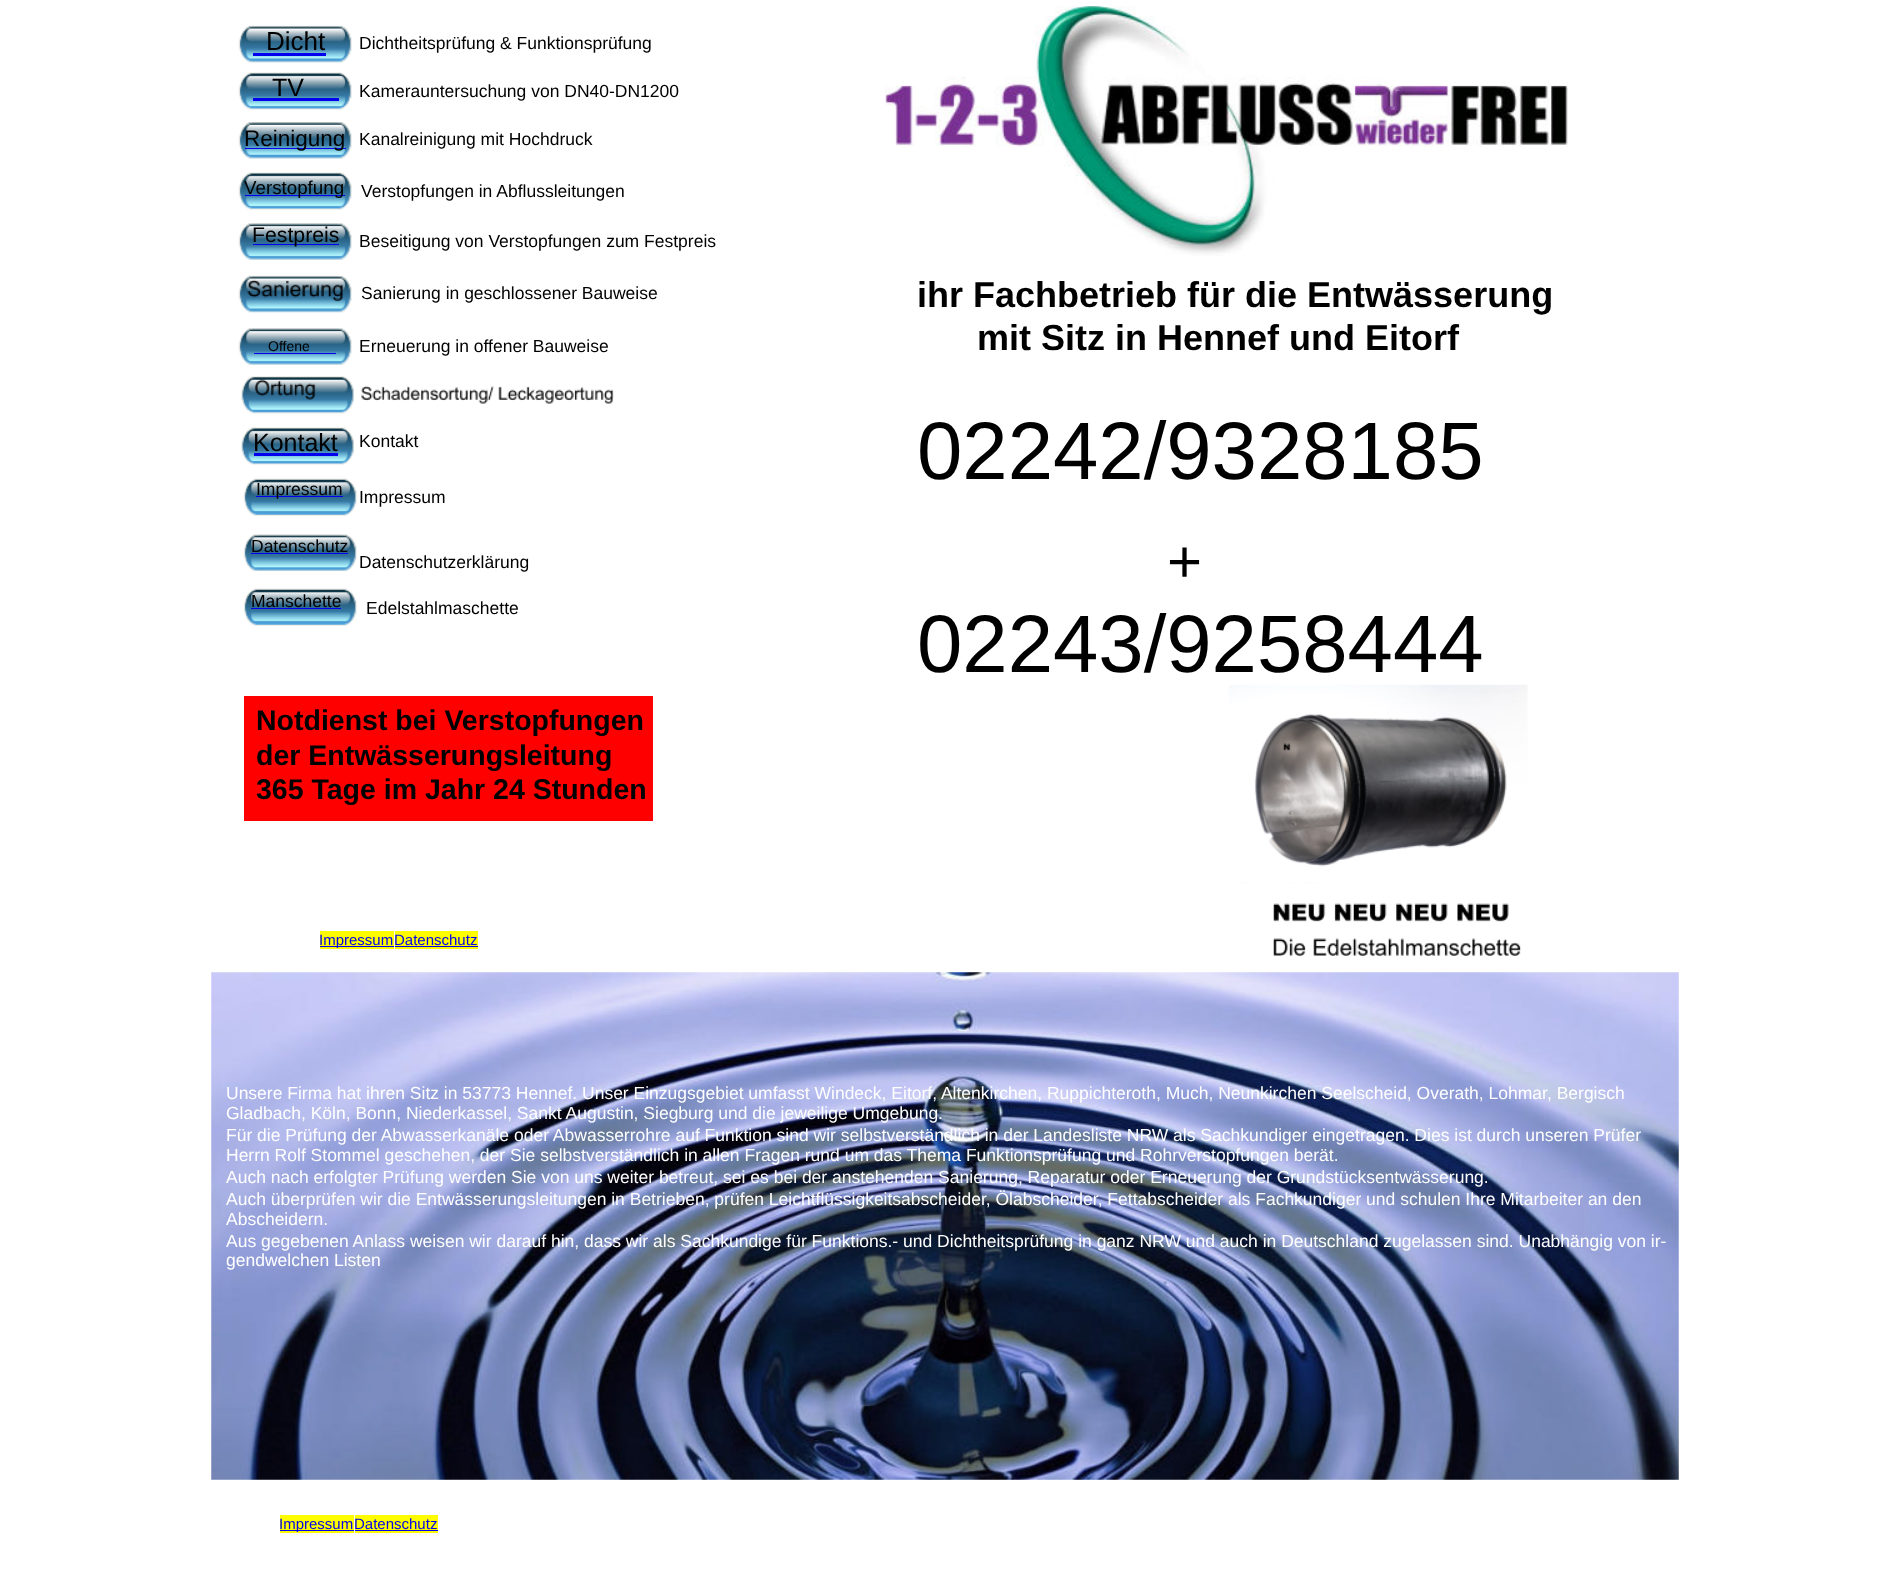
<svg xmlns="http://www.w3.org/2000/svg" width="1879" height="1580" viewBox="0 0 1879 1580">
  <rect width="100%" height="100%" fill="#fff"/>
  <image x="238" y="25" width="114" height="38" href="img/1.png"/>
  <image x="885" y="6" width="683" height="250" href="img/2.png"/>
  <path d="M253 53h73v3H253z" fill="#00e"/>
  <image x="238" y="72" width="114" height="38" href="img/3.png"/>
  <path d="M253 98h86v3H253z" fill="#00e"/>
  <image x="238" y="122" width="114" height="37" href="img/4.png"/>
  <path d="M245 148h101v1H245z" fill="#00e"/>
  <image x="238" y="172" width="114" height="38" href="img/5.png"/>
  <path d="M245 195h100v1H245z" fill="#00e"/>
  <image x="238" y="223" width="114" height="37" href="img/6.png"/>
  <path d="M253 244h86v1H253z" fill="#00e"/>
  <image x="238" y="275" width="114" height="38" href="img/7.png"/>
  <image x="238" y="328" width="114" height="37" href="img/8.png"/>
  <path d="M254 353h82v1H254z" fill="#00e"/>
  <image x="241" y="376" width="373" height="38" href="img/9.png"/>
  <image x="241" y="427" width="113" height="38" href="img/10.png"/>
  <path d="M254 453h84v3H254z" fill="#00e"/>
  <image x="243" y="478" width="114" height="38" href="img/11.png"/>
  <path d="M256 496h87v1H256z" fill="#00e"/>
  <image x="243" y="534" width="114" height="37" href="img/12.png"/>
  <path d="M251 553h97v1H251z" fill="#00e"/>
  <image x="243" y="588" width="114" height="38" href="img/11.png"/>
  <path d="M251 608h90v1H251z" fill="#00e"/>
  <path d="M244 696h409v125H244z" fill="#f00"/>
  <image x="1229" y="684" width="299" height="272" href="img/13.png"/>
  <path d="M320 931h74v18H320z" fill="#fffc00"/>
  <path d="M320 946h74v1H320z" fill="#00e"/>
  <path d="M395 931h83v18H395z" fill="#fffc00"/>
  <path d="M395 946h83v1H395z" fill="#00e"/>
  <image x="211" y="972" width="1468" height="508" href="img/14.png"/>
  <path d="M280 1515h74v18H280z" fill="#fffc00"/>
  <path d="M280 1530h74v1H280z" fill="#00e"/>
  <path d="M355 1515h83v18H355z" fill="#fffc00"/>
  <path d="M355 1530h83v1H355z" fill="#00e"/>
  <text x="266" y="50" font-family="Liberation Sans" font-size="26" fill="#000">Dicht</text>
  <text x="359" y="49" font-family="Liberation Sans" font-size="17.5" fill="#000">Dichtheitsprüfung &amp; Funktionsprüfung</text>
  <text x="272" y="96" font-family="Liberation Sans" font-size="25" fill="#000">TV</text>
  <text x="359" y="97" font-family="Liberation Sans" font-size="17.5" fill="#000">Kamerauntersuchung von DN40-DN1200</text>
  <text x="244" y="146" font-family="Liberation Sans" font-size="22.5" fill="#000">Reinigung</text>
  <text x="359" y="145" font-family="Liberation Sans" font-size="17.5" fill="#000">Kanalreinigung mit Hochdruck</text>
  <text x="244" y="194" font-family="Liberation Sans" font-size="18.75" fill="#000">Verstopfung</text>
  <text x="361" y="197" font-family="Liberation Sans" font-size="17.5" fill="#000">Verstopfungen in Abflussleitungen</text>
  <text x="252" y="242" font-family="Liberation Sans" font-size="21.25" fill="#000">Festpreis</text>
  <g font-family="Liberation Sans" font-size="17.5" fill="#000">
    <text x="359" y="247">Beseitigung von Verstopfungen zum Festpreis</text>
    <text x="361" y="299">Sanierung in geschlossener Bauweise</text>
  </g>
  <g font-family="Liberation Sans" font-size="36" font-weight="bold" fill="#000">
    <text x="917" y="307">ihr Fachbetrieb für die Entwässerung</text>
    <text x="977" y="350">mit Sitz in Hennef und Eitorf</text>
  </g>
  <text x="917" y="479" font-family="Liberation Sans" font-size="81.5" fill="#000">02242/9328185</text>
  <text x="1167" y="582" font-family="Liberation Sans" font-size="60" fill="#000">+</text>
  <text x="917" y="672" font-family="Liberation Sans" font-size="81.5" fill="#000">02243/9258444</text>
  <text x="359" y="352" font-family="Liberation Sans" font-size="17.5" fill="#000">Erneuerung in offener Bauweise</text>
  <text x="268" y="351" font-family="Liberation Sans" font-size="14" fill="#000">Offene</text>
  <text x="253" y="451" font-family="Liberation Sans" font-size="25" fill="#000">Kontakt</text>
  <g font-family="Liberation Sans" font-size="17.5" fill="#000">
    <text x="359" y="447">Kontakt</text>
    <text x="256" y="495">Impressum</text>
    <text x="359" y="503">Impressum</text>
    <text x="251" y="552">Datenschutz</text>
    <text x="359" y="568">Datenschutzerklärung</text>
    <text x="251" y="607">Manschette</text>
    <text x="366" y="614">Edelstahlmaschette</text>
  </g>
  <g font-family="Liberation Sans" font-size="28.5" font-weight="bold" fill="#000">
    <text x="256" y="730">Notdienst bei Verstopfungen</text>
    <text x="256" y="765">der Entwässerungsleitung</text>
    <text x="256" y="799">365 Tage im Jahr 24 Stunden</text>
  </g>
  <g font-family="Liberation Sans" font-size="15" fill="#00e">
    <text x="319" y="945">Impressum</text>
    <text x="394" y="945">Datenschutz</text>
  </g>
  <g font-family="Liberation Sans" font-size="17.5" fill="#fff">
    <text x="226" y="1099">Unsere Firma hat ihren Sitz in 53773 Hennef. Unser Einzugsgebiet umfasst Windeck, Eitorf, Altenkirchen, Ruppichteroth, Much, Neunkirchen Seelscheid, Overath, Lohmar, Bergisch</text>
    <text x="226" y="1119">Gladbach, Köln, Bonn, Niederkassel, Sankt Augustin, Siegburg und die jeweilige Umgebung.</text>
    <text x="226" y="1141">Für die Prüfung der Abwasserkanäle oder Abwasserrohre auf Funktion sind wir selbstverständlich in der Landesliste NRW als Sachkundiger eingetragen. Dies ist durch unseren Prüfer</text>
    <text x="226" y="1161">Herrn Rolf Stommel geschehen, der Sie selbstverständlich in allen Fragen rund um das Thema Funktionsprüfung und Rohrverstopfungen berät.</text>
    <text x="226" y="1183">Auch nach erfolgter Prüfung werden Sie von uns weiter betreut, sei es bei der anstehenden Sanierung, Reparatur oder Erneuerung der Grundstücksentwässerung.</text>
    <text x="226" y="1205">Auch überprüfen wir die Entwässerungsleitungen in Betrieben, prüfen Leichtflüssigkeitsabscheider, Ölabscheider, Fettabscheider als Fachkundiger und schulen Ihre Mitarbeiter an den</text>
    <text x="226" y="1225">Abscheidern.</text>
    <text x="226" y="1247">Aus gegebenen Anlass weisen wir darauf hin, dass wir als Sachkundige für Funktions.- und Dichtheitsprüfung in ganz NRW und auch in Deutschland zugelassen sind. Unabhängig von ir-</text>
    <text x="226" y="1266">gendwelchen Listen</text>
  </g>
  <g font-family="Liberation Sans" font-size="15" fill="#00e">
    <text x="279" y="1529">Impressum</text>
    <text x="354" y="1529">Datenschutz</text>
  </g>
</svg>
